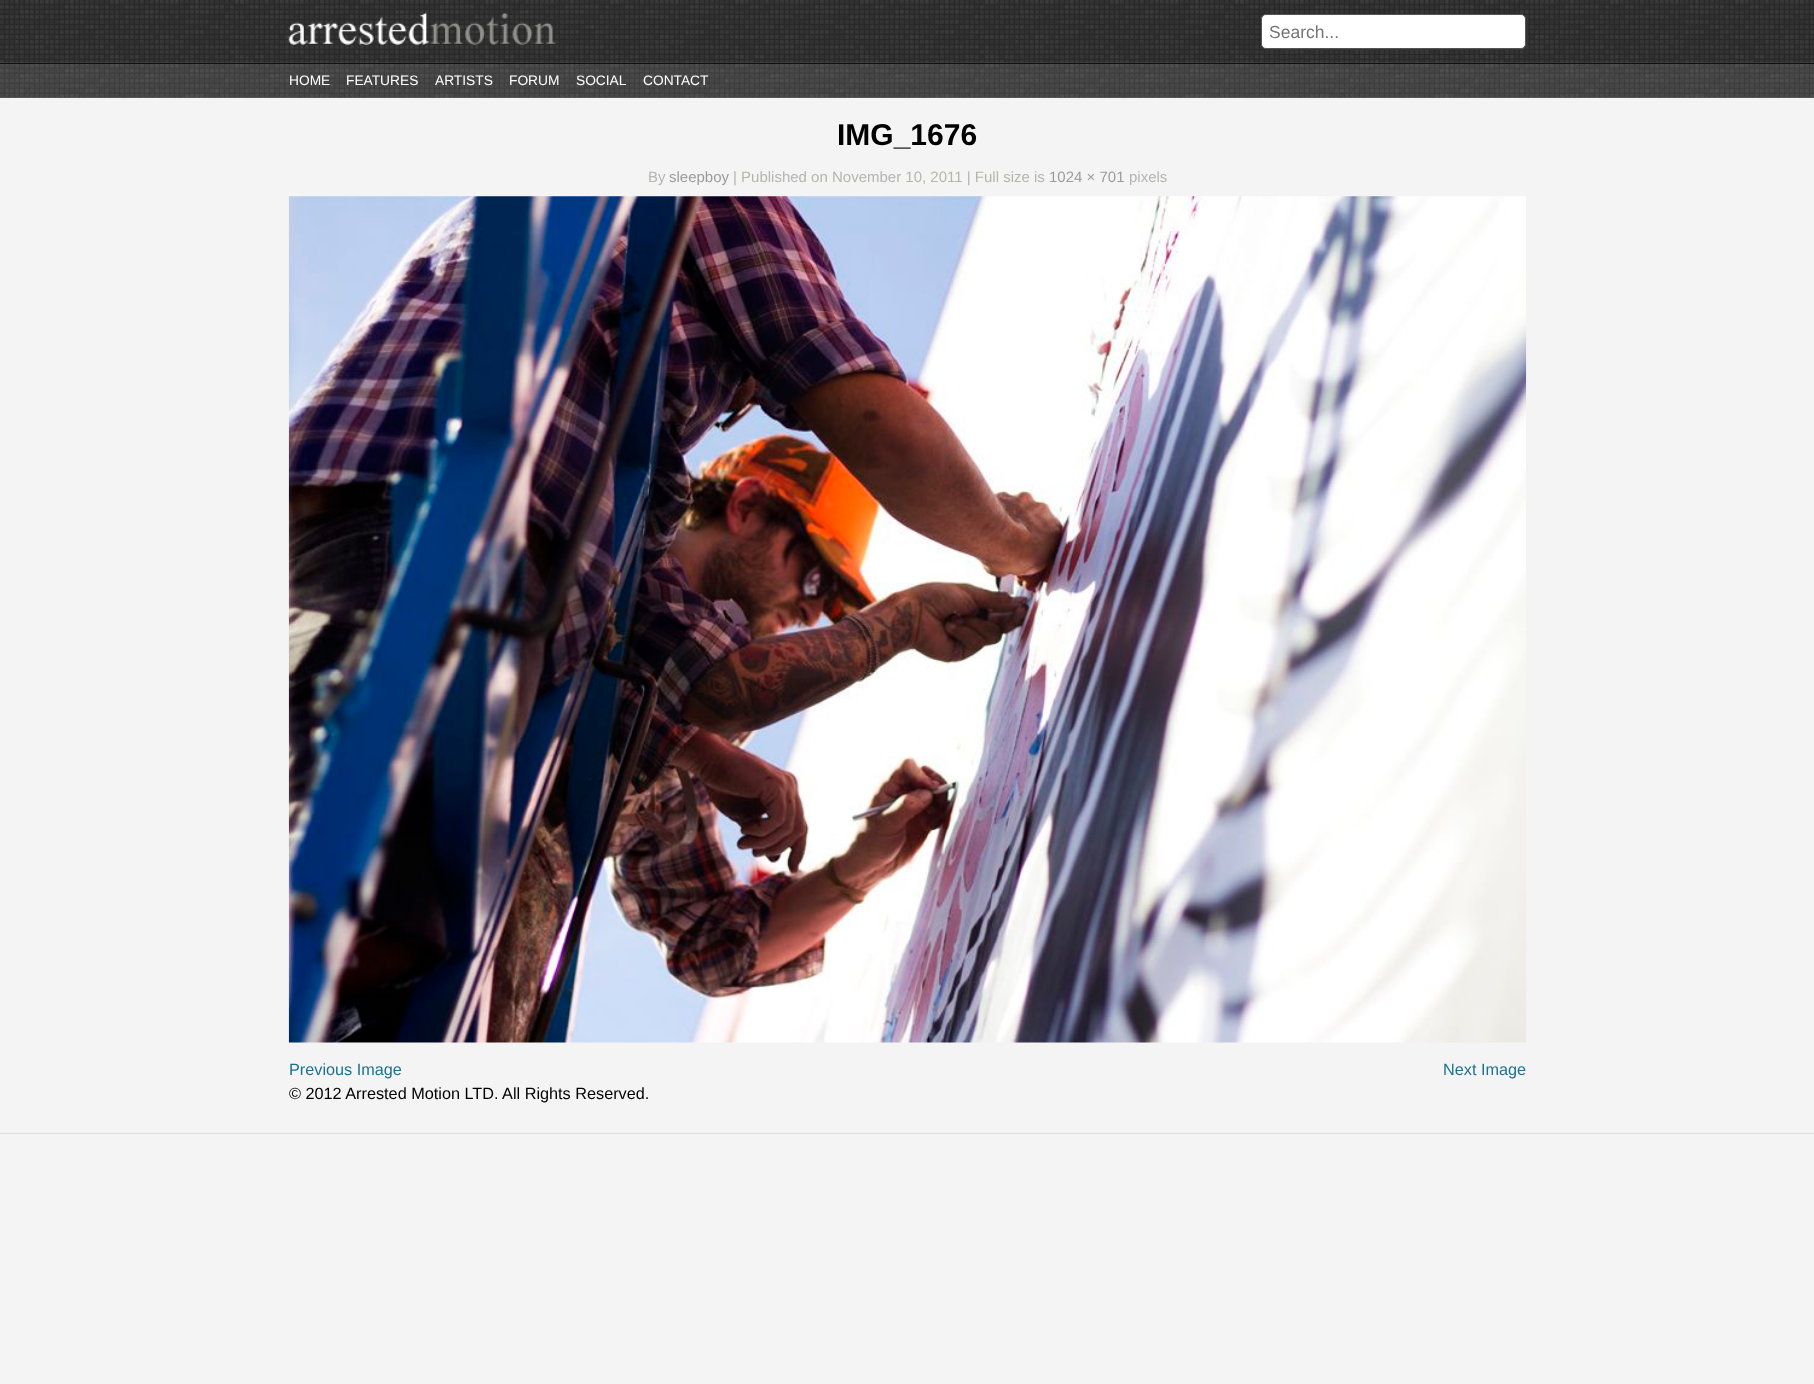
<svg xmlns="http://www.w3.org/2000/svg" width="1814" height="1384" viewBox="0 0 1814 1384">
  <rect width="100%" height="100%" fill="#f4f4f4"/>
  <image x="0" y="0" width="1814" height="63" href="img/1.png"/>
  <image x="288" y="12" width="268" height="33" href="img/2.png"/>
  <rect x="1263" y="15" width="265" height="35" rx="5" fill="#333" filter="blur(0.5px)"/>
  <rect x="1261.5" y="14.5" width="264" height="34" rx="4.5" fill="#fff" stroke="#555"/>
  <path d="M0 97h1814v1H0z" fill="#666"/>
  <image x="0" y="62" width="1814" height="36" href="img/3.png"/>
  <path d="M0 63h1814v1H0z" fill="#111"/>
  <image x="288" y="196" width="1239" height="847" href="img/4.png"/>
  <path d="M0 1133h1814v1H0z" fill="#dedede"/>
  <text x="1269" y="38" font-family="Liberation Sans" font-size="17.5" fill="#757575">Search...</text>
  <g font-family="Liberation Sans" font-size="13.75" fill="#fff">
    <text x="289" y="85">HOME</text>
    <text x="346" y="85">FEATURES</text>
    <text x="435" y="85">ARTISTS</text>
    <text x="509" y="85">FORUM</text>
    <text x="576" y="85">SOCIAL</text>
    <text x="643" y="85">CONTACT</text>
  </g>
  <text x="837" y="145" font-family="Liberation Sans" font-size="30" font-weight="bold" fill="#000">IMG_1676</text>
  <text x="648" y="182" font-family="Liberation Sans" font-size="15" fill="#b4b5b0">By</text>
  <text x="669" y="182" font-family="Liberation Sans" font-size="15" fill="#9b9b9b">sleepboy</text>
  <text x="733" y="182" font-family="Liberation Sans" font-size="15" fill="#b4b5b0">| Published on November 10, 2011 | Full size is</text>
  <text x="1049" y="182" font-family="Liberation Sans" font-size="15" fill="#9b9b9b">1024 × 701</text>
  <text x="1129" y="182" font-family="Liberation Sans" font-size="15" fill="#b4b5b0">pixels</text>
  <g font-family="Liberation Sans" font-size="16.25" fill="#1d718f">
    <text x="289" y="1075">Previous Image</text>
    <text x="1443" y="1075">Next Image</text>
  </g>
  <text x="289" y="1099" font-family="Liberation Sans" font-size="16.25" fill="#000">© 2012 Arrested Motion LTD. All Rights Reserved.</text>
</svg>
